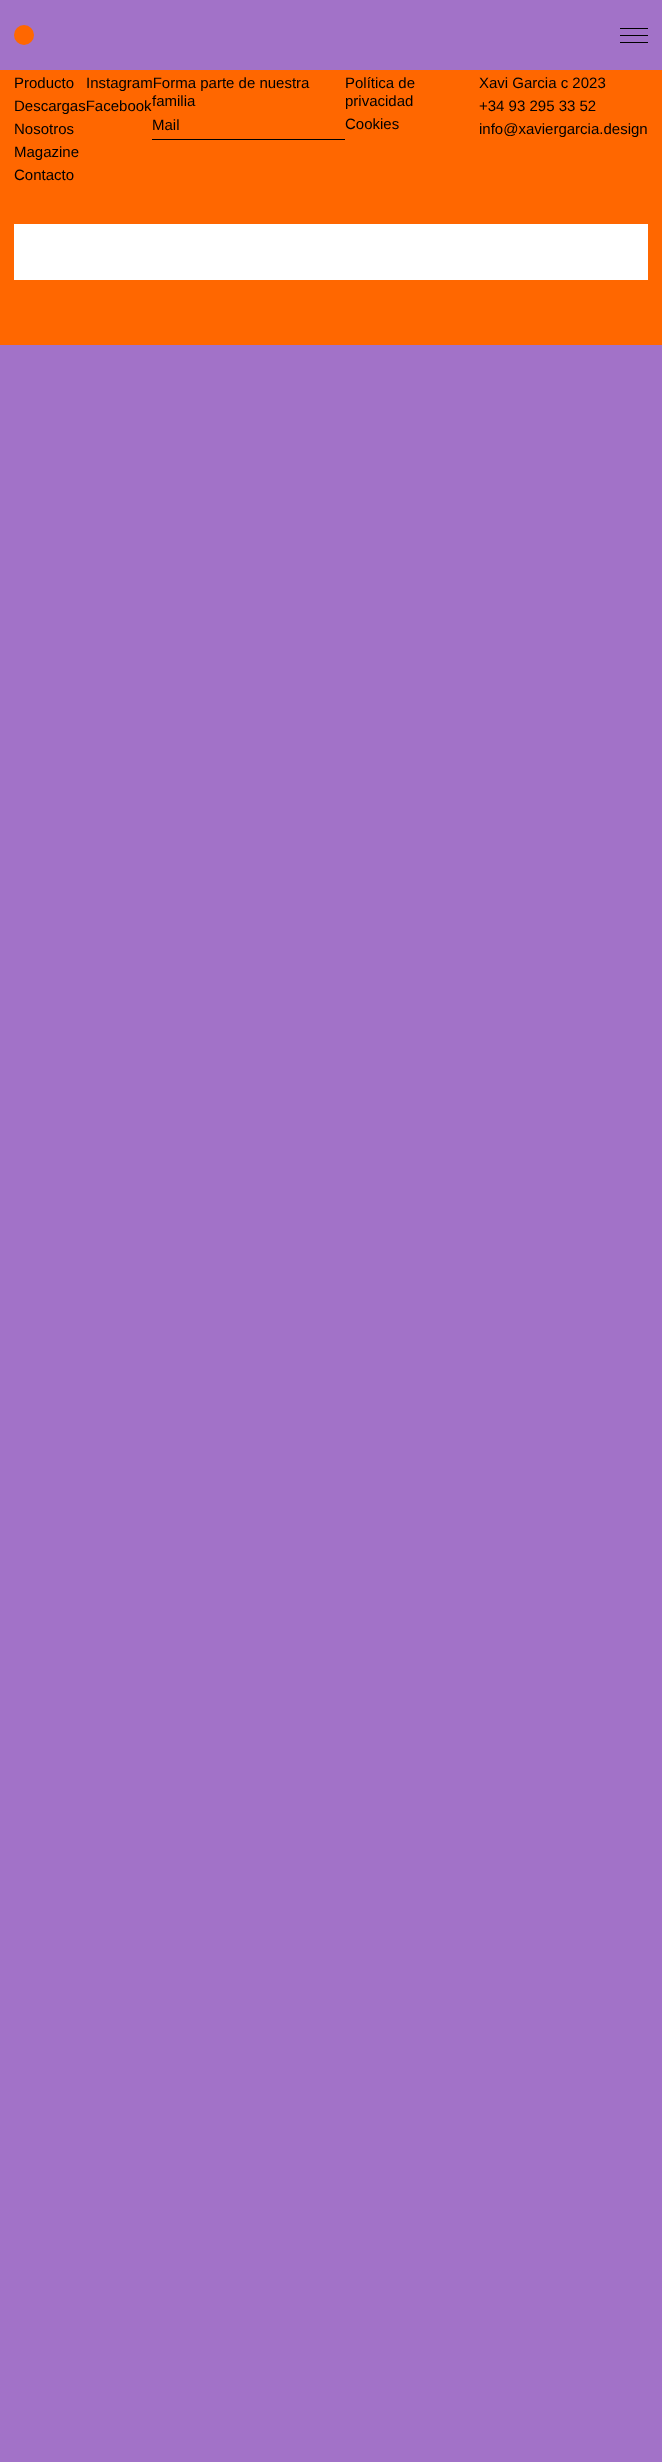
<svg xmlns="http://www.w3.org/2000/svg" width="662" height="2462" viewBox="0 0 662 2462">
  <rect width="100%" height="100%" fill="#a272c8"/>
  <circle cx="24" cy="35" r="10" fill="#ff6700"/>
  <path d="M620 28h28v1H620z" fill="#000"/>
  <path d="M620 35h28v1H620z" fill="#000"/>
  <path d="M620 42h28v1H620z" fill="#000"/>
  <path d="M0 70h662v275H0z" fill="#ff6700"/>
  <path d="M152 139h193v1H152z" fill="#000"/>
  <path d="M14 224h634v56H14z" fill="#fff"/>
  <g font-family="Liberation Sans" font-size="15" fill="#000">
    <text x="14" y="88">Producto</text>
    <text x="14" y="111">DescargasFacebook</text>
    <text x="14" y="134">Nosotros</text>
    <text x="14" y="157">Magazine</text>
    <text x="14" y="180">Contacto</text>
    <text x="86" y="88">InstagramForma parte de nuestra</text>
    <text x="345" y="88">Política de</text>
    <text x="345" y="106">privacidad</text>
    <text x="345" y="129">Cookies</text>
    <text x="479" y="88">Xavi Garcia c 2023</text>
    <text x="479" y="111">+34 93 295 33 52</text>
    <text x="479" y="134">info@xaviergarcia.design</text>
    <text x="152" y="106">familia</text>
    <text x="152" y="130">Mail</text>
  </g>
</svg>
